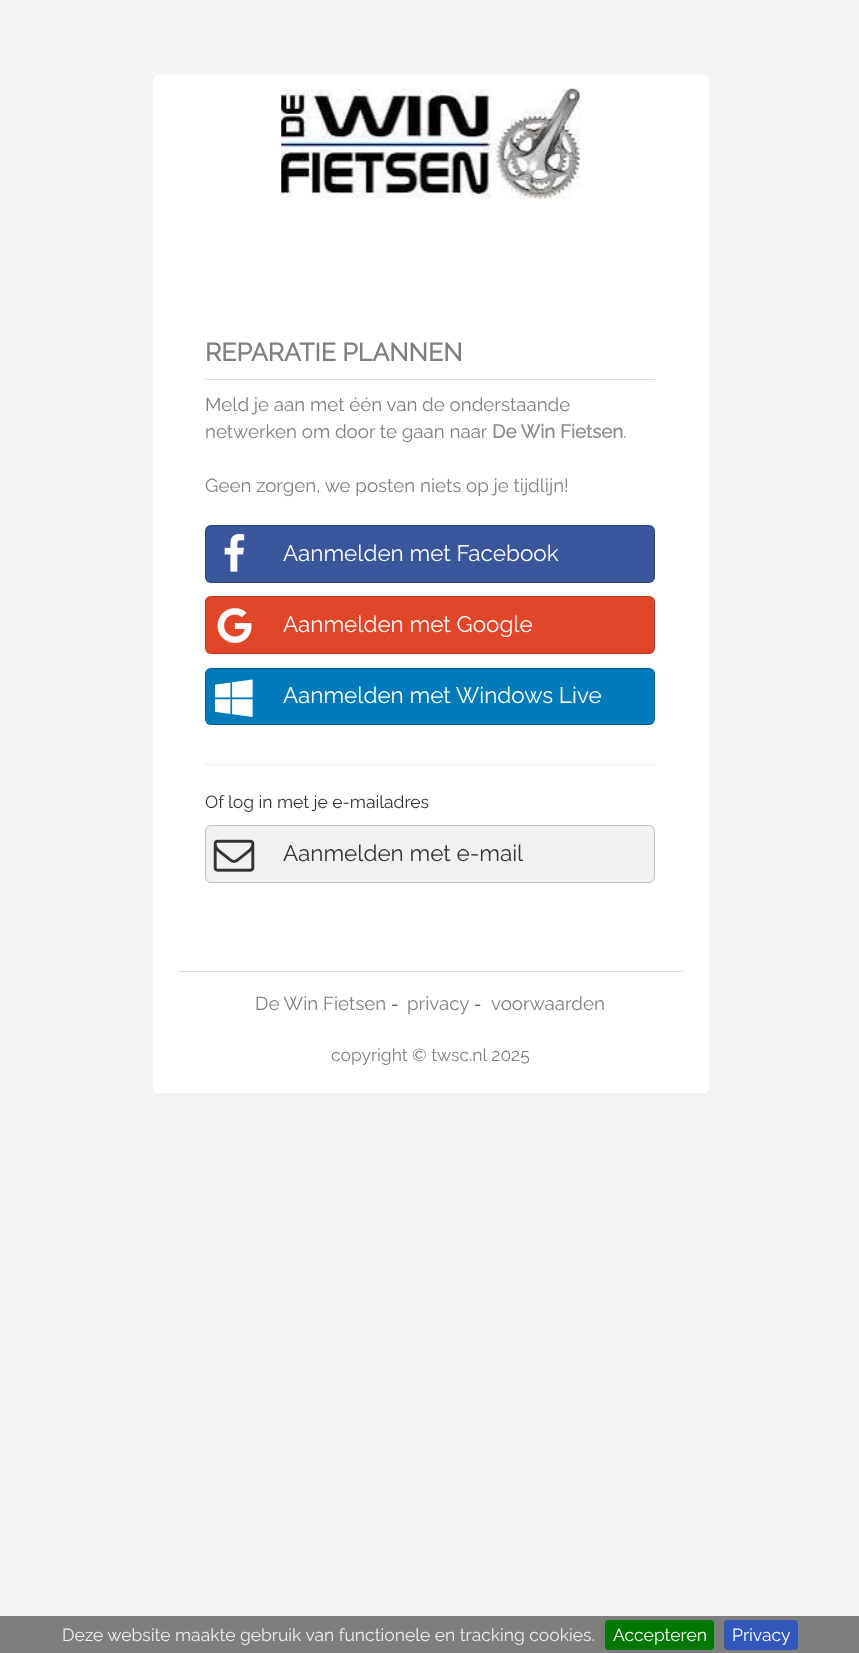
<svg xmlns="http://www.w3.org/2000/svg" width="859" height="1653" viewBox="0 0 859 1653">
  <rect width="100%" height="100%" fill="#f3f3f3"/>
  <rect x="153" y="76" width="556" height="1019" rx="5" fill="#0000000d" filter="blur(0.5px)"/>
  <rect x="153" y="75" width="556" height="1019" rx="5" fill="#fff"/>
  <image x="281" y="88" width="299" height="111" href="img/1.png"/>
  <path d="M205 379h450v1H205z" fill="#dcdcdc"/>
  <rect x="205" y="525" width="450" height="58" rx="6" fill="#39569b"/>
  <rect x="205.5" y="525.5" width="449" height="57" rx="5.5" fill="none" stroke="#00000033"/>
  <image x="224" y="534" width="21" height="38" href="img/2.png"/>
  <rect x="205" y="596" width="450" height="58" rx="6" fill="#e34528"/>
  <rect x="205.5" y="596.5" width="449" height="57" rx="5.5" fill="none" stroke="#00000033"/>
  <image x="217" y="608" width="35" height="35" href="img/3.png"/>
  <rect x="205" y="668" width="450" height="57" rx="6" fill="#007bb9"/>
  <rect x="205.5" y="668.5" width="449" height="56" rx="5.5" fill="none" stroke="#00000033"/>
  <image x="215" y="679" width="38" height="38" href="img/4.png"/>
  <path d="M205 764h450v1H205z" fill="#eee"/>
  <rect x="205" y="825" width="450" height="58" rx="6" fill="#f1f1f1"/>
  <rect x="205.5" y="825.5" width="449" height="57" rx="5.5" fill="none" stroke="#00000033"/>
  <image x="213" y="839" width="42" height="33" href="img/5.png"/>
  <path d="M179 971h504v1H179z" fill="#dcdcdc"/>
  <path d="M0 1616h859v37H0z" fill="#7e7e7e"/>
  <rect x="605" y="1620" width="109" height="30" rx="4" fill="#070"/>
  <rect x="724" y="1620" width="74" height="30" rx="4" fill="#3257bb"/>
  <text x="205" y="361" font-family="Raleway" font-size="25" font-weight="bold" fill="#7f7f7f">REPARATIE PLANNEN</text>
  <g font-family="Raleway" font-size="18.75" font-weight="100" fill="#7f7f7f">
    <text x="205" y="411">Meld je aan met één van de onderstaande</text>
    <text x="205" y="438">netwerken om door te gaan naar</text>
  </g>
  <text x="492" y="438" font-family="Raleway" font-size="18.75" font-weight="bold" fill="#8c8c8c">De Win Fietsen</text>
  <g font-family="Raleway" font-size="18.75" font-weight="100" fill="#7f7f7f">
    <text x="623" y="438">.</text>
    <text x="205" y="492">Geen zorgen, we posten niets op je tijdlijn!</text>
  </g>
  <g font-family="Raleway" font-size="22.5" font-weight="100" fill="#fff">
    <text x="283" y="561">Aanmelden met Facebook</text>
    <text x="283" y="632">Aanmelden met Google</text>
    <text x="283" y="703">Aanmelden met Windows Live</text>
  </g>
  <text x="205" y="808" font-family="Raleway" font-size="17.5" font-weight="100" fill="#333">Of log in met je e-mailadres</text>
  <text x="283" y="861" font-family="Raleway" font-size="22.5" font-weight="100" fill="#333">Aanmelden met e-mail</text>
  <text x="255" y="1010" font-family="Raleway" font-size="18.75" font-weight="100" fill="#7f7f7f">De Win Fietsen</text>
  <text x="391" y="1010" font-family="Raleway" font-size="17.5" font-weight="100" fill="#333">-</text>
  <text x="407" y="1010" font-family="Raleway" font-size="18.75" font-weight="100" fill="#7f7f7f">privacy</text>
  <text x="474" y="1010" font-family="Raleway" font-size="17.5" font-weight="100" fill="#333">-</text>
  <text x="491" y="1010" font-family="Raleway" font-size="18.75" font-weight="100" fill="#7f7f7f">voorwaarden</text>
  <text x="331" y="1061" font-family="Raleway" font-size="17.5" font-weight="100" fill="#7f7f7f">copyright © twsc.nl 2025</text>
  <text x="62" y="1641" font-family="Raleway" font-size="17.5" font-weight="100" fill="#eee">Deze website maakte gebruik van functionele en tracking cookies.</text>
  <g font-family="Raleway" font-size="17.5" font-weight="100" fill="#fff">
    <text x="613" y="1641">Accepteren</text>
    <text x="732" y="1641">Privacy</text>
  </g>
</svg>
